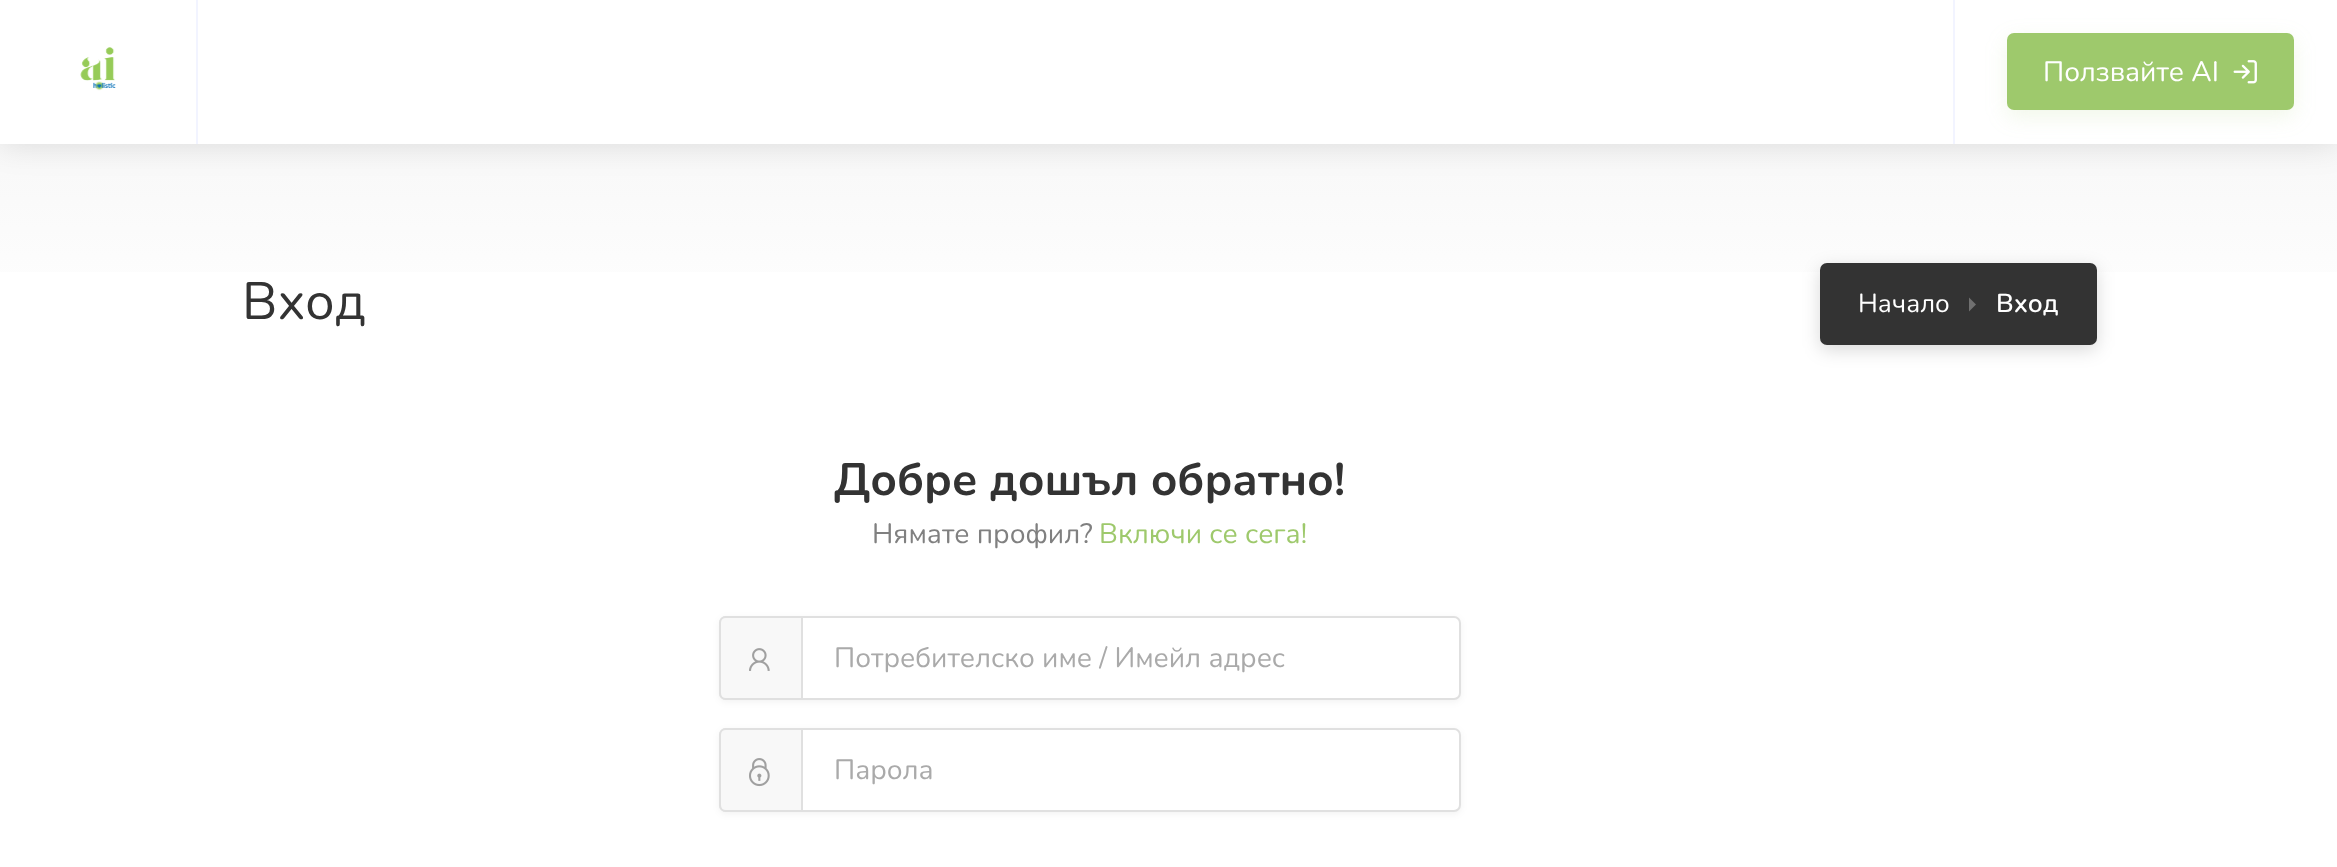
<svg xmlns="http://www.w3.org/2000/svg" width="2337" height="867" viewBox="0 0 2337 867">
  <defs>
    <linearGradient id="g1" gradientUnits="userSpaceOnUse" x1="1169" y1="143" x2="1169" y2="343"><stop offset="0" stop-color="#f8f8f8"/><stop offset="1" stop-color="#fff"/></linearGradient>
  </defs>
  <rect width="100%" height="100%" fill="#fff"/>
  <path d="M0 144h2337v128H0z" fill="url(#g1)"/>
  <path d="M0 0h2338v144H0z" fill="#0000001f" filter="blur(16px)"/>
  <path d="M0 0h2337v144H0z" fill="#fff"/>
  <path d="M196 0h2v144H196z" fill="#f2f4ff"/>
  <image x="80" y="47" width="36" height="44" href="img/1.png"/>
  <path d="M1953 0h2v144H1953z" fill="#f2f4ff"/>
  <rect x="2007" y="40" width="287" height="77" rx="7" fill="#9ec96c26" filter="blur(10.5px)"/>
  <rect x="2007" y="33" width="287" height="77" rx="7" fill="#9ec96c"/>
  <image x="2233" y="60" width="24" height="24" href="img/2.png"/>
  <rect x="1820" y="268" width="277" height="82" rx="7" fill="#00000026" filter="blur(9px)"/>
  <rect x="1820" y="263" width="277" height="82" rx="7" fill="#333"/>
  <path d="M1969 311.5V297.5L1976 304.5Z" fill="#707070"/>
  <rect x="719" y="618" width="742" height="84" rx="7" fill="#0000000d" filter="blur(3.5px)"/>
  <rect x="720" y="617" width="740" height="82" rx="6" fill="#fff" stroke="#e0e0e0" stroke-width="2"/>
  <path d="M726 617H802V699H726C722.5 699 720 696.5 720 693V623C720 619.5 722.5 617 726 617Z" fill="#f8f8f8" stroke="#e0e0e0" stroke-width="2"/>
  <image x="749" y="648" width="21" height="23" href="img/3.png"/>
  <rect x="719" y="730" width="742" height="84" rx="7" fill="#0000000d" filter="blur(3.5px)"/>
  <rect x="720" y="729" width="740" height="82" rx="6" fill="#fff" stroke="#e0e0e0" stroke-width="2"/>
  <path d="M726 729H802V811H726C722.5 811 720 808.5 720 805V735C720 731.5 722.5 729 726 729Z" fill="#f8f8f8" stroke="#e0e0e0" stroke-width="2"/>
  <image x="749" y="758" width="21" height="29" href="img/4.png"/>
  <text x="2043" y="81" font-family="Nunito" font-size="28" fill="#fff">Ползвайте AI</text>
  <text x="242" y="319" font-family="Nunito" font-size="52.5" fill="#333">Вход</text>
  <text x="1858" y="312" font-family="Nunito" font-size="26" fill="#fff">Начало</text>
  <text x="1996" y="312" font-family="Nunito" font-size="26" font-weight="600" fill="#fff">Вход</text>
  <text x="834" y="495" font-family="Nunito" font-size="45.5" font-weight="bold" fill="#333">Добре дошъл обратно!</text>
  <text x="872" y="543" font-family="Nunito" font-size="28" fill="#808080">Нямате профил?</text>
  <text x="1099" y="543" font-family="Nunito" font-size="28" fill="#9ec96c">Включи се сега!</text>
  <g font-family="Nunito" font-size="28" fill="#aaa">
    <text x="834" y="667">Потребителско име / Имейл адрес</text>
    <text x="834" y="779">Парола</text>
  </g>
</svg>
